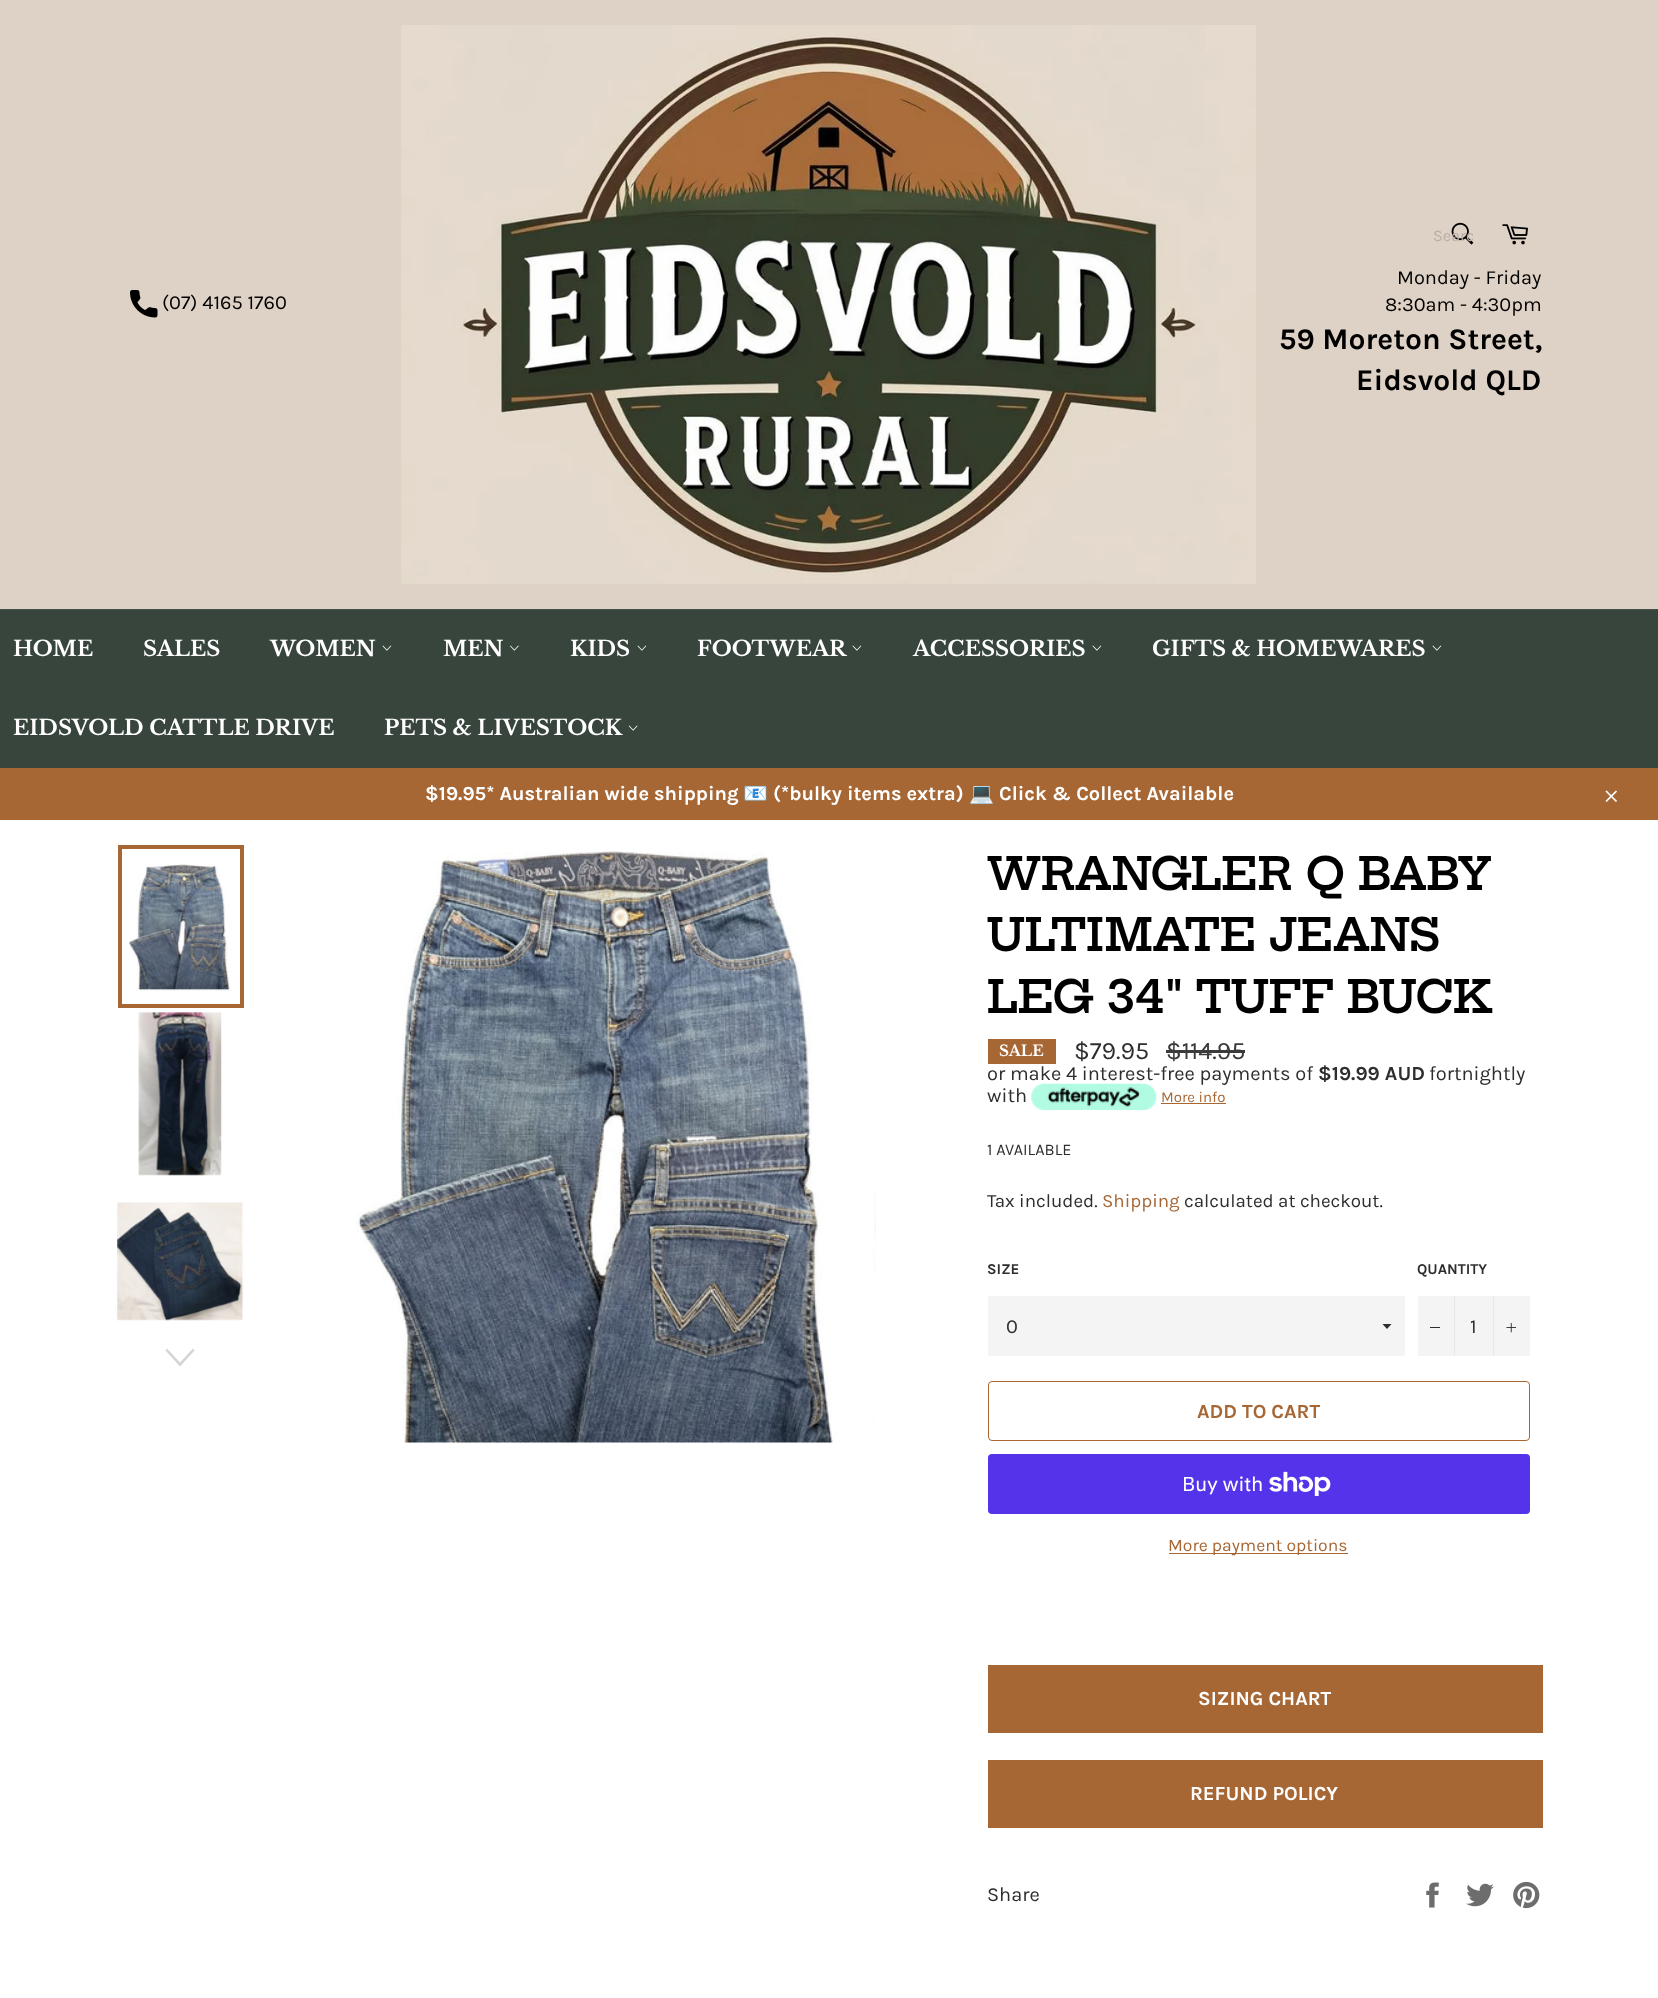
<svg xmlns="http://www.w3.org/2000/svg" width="1658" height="1998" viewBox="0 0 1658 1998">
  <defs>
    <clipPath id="clip1"><path d="M1433 226h40v19H1433z"/></clipPath>
  </defs>
  <rect width="100%" height="100%" fill="#fff"/>
  <path d="M0 0h1658v609H0z" fill="#ded1c5"/>
  <image x="130" y="290" width="28" height="28" href="img/1.png"/>
  <image x="401" y="25" width="855" height="559" href="img/2.png"/>
  <image x="1451" y="222" width="23" height="23" href="img/3.png"/>
  <image x="1502" y="224" width="26" height="21" href="img/4.png"/>
  <path d="M0 610h1658v158H0z" fill="#38453d"/>
  <path d="M0 609h1658v1H0z" fill="#435349"/>
  <image x="382" y="645" width="10" height="6" href="img/5.png"/>
  <image x="510" y="645" width="9" height="6" href="img/6.png"/>
  <image x="637" y="645" width="10" height="6" href="img/5.png"/>
  <image x="852" y="645" width="10" height="6" href="img/5.png"/>
  <image x="1092" y="645" width="10" height="6" href="img/5.png"/>
  <image x="1432" y="645" width="10" height="6" href="img/5.png"/>
  <image x="628" y="725" width="10" height="6" href="img/7.png"/>
  <path d="M0 768h1658v52H0z" fill="#a66735"/>
  <image x="1605" y="790" width="12" height="12" href="img/8.png"/>
  <image x="129" y="863" width="102" height="128" href="img/9.png"/>
  <path d="M120 847h122v159H120z" fill="none" stroke="#a66735" stroke-width="4"/>
  <image x="138" y="1012" width="84" height="164" href="img/10.png"/>
  <image x="117" y="1202" width="127" height="119" href="img/11.png"/>
  <path d="M193 1348.5L194.5 1350.5L180 1366.5L165.5 1350.5L167 1348.5L180 1362.5Z" fill="#d5d5d5"/>
  <image x="356" y="851" width="520" height="592" href="img/12.png"/>
  <path d="M988 1039h68v25H988z" fill="#a66735"/>
  <path d="M1166 1050h79v3H1166z" fill="#3b3b3b"/>
  <path d="M1161 1103h65v1H1161z" fill="#a66735"/>
  <path d="M988 1296h417v60H988z" fill="#f4f4f4"/>
  <path d="M1382.5 1324L1387 1329L1391.5 1324Z" fill="#2e2e2e"/>
  <path d="M1418 1296h112v60H1418z" fill="#f4f4f4"/>
  <path d="M1454 1296h1v60H1454z" fill="#e7e7e7"/>
  <path d="M1430 1327h10v1H1430z" fill="#2e2e2e"/>
  <path d="M1493 1296h1v60H1493z" fill="#e7e7e7"/>
  <image x="1506" y="1323" width="10" height="10" href="img/14.png"/>
  <rect x="988.5" y="1381.5" width="541" height="59" rx="3.5" fill="none" stroke="#a66735"/>
  <rect x="988" y="1454" width="542" height="60" rx="4" fill="#5433eb"/>
  <image x="1269" y="1471" width="62" height="25" href="img/15.png"/>
  <path d="M1169 1553h179v1H1169z" fill="#a66735"/>
  <path d="M988 1665h555v68H988z" fill="#a66735"/>
  <path d="M988 1760h555v68H988z" fill="#a66735"/>
  <image x="1426" y="1882" width="13" height="26" href="img/16.png"/>
  <image x="1466" y="1883" width="28" height="24" href="img/17.png"/>
  <image x="1513" y="1881" width="27" height="28" href="img/18.png"/>
  <text x="162" y="309" font-family="Karla" font-size="20" fill="#000">(07) 4165 1760</text>
  <g clip-path="url(#clip1)">
    <text x="1433" y="241" font-family="Karla" font-size="16.25" fill="#baafa5">Searc</text>
  </g>
  <g font-family="Karla" font-size="20" fill="#000">
    <text x="1397" y="284">Monday - Friday</text>
    <text x="1385" y="311">8:30am - 4:30pm</text>
  </g>
  <g font-family="Karla" font-size="30" font-weight="bold" fill="#000">
    <text x="1279" y="349">59 Moreton Street,</text>
    <text x="1356" y="390">Eidsvold QLD</text>
  </g>
  <g font-family="Libre Baskerville" font-size="21.25" font-weight="bold" fill="#fff">
    <text x="13" y="656">HOME</text>
    <text x="143" y="656">SALES</text>
    <text x="270" y="656">WOMEN</text>
    <text x="443" y="656">MEN</text>
    <text x="570" y="656">KIDS</text>
    <text x="697" y="656">FOOTWEAR</text>
    <text x="913" y="656">ACCESSORIES</text>
    <text x="1152" y="656">GIFTS &amp; HOMEWARES</text>
    <text x="13" y="735">EIDSVOLD CATTLE DRIVE</text>
    <text x="384" y="735">PETS &amp; LIVESTOCK</text>
  </g>
  <text x="425" y="800" font-family="Karla" font-size="20" font-weight="bold" fill="#fff">$19.95* Australian wide shipping</text>
  <text x="743" y="800" font-family="Noto Color Emoji" font-size="20" font-weight="bold" fill="#fff">📧</text>
  <text x="773" y="800" font-family="Karla" font-size="20" font-weight="bold" fill="#fff">(*bulky items extra)</text>
  <text x="969" y="800" font-family="Noto Color Emoji" font-size="20" font-weight="bold" fill="#fff">💻</text>
  <text x="999" y="800" font-family="Karla" font-size="20" font-weight="bold" fill="#fff">Click &amp; Collect Available</text>
  <g font-family="Hepta Slab" font-size="45" font-weight="600" fill="#000">
    <text x="987" y="890">WRANGLER Q BABY</text>
    <text x="987" y="951">ULTIMATE JEANS</text>
    <text x="987" y="1013">LEG 34" TUFF BUCK</text>
  </g>
  <text x="999" y="1056" font-family="Libre Baskerville" font-size="15" font-weight="bold" fill="#fff">SALE</text>
  <text x="1074" y="1059" font-family="Karla" font-size="25" fill="#2e2e2e">$79.95</text>
  <text x="1166" y="1059" font-family="Karla" font-size="25" fill="#3b3b3b">$114.95</text>
  <text x="987" y="1080" font-family="Karla" font-size="20" fill="#2e2e2e">or make 4 interest-free payments of</text>
  <text x="1318" y="1080" font-family="Karla" font-size="20" font-weight="bold" fill="#2e2e2e">$19.99 AUD</text>
  <g font-family="Karla" font-size="20" fill="#2e2e2e">
    <text x="1429" y="1080">fortnightly</text>
    <text x="987" y="1102">with</text>
  </g>
  <image x="1031" y="1083" width="126" height="27" href="img/13.png"/>
  <text x="1161" y="1102" font-family="Karla" font-size="15" fill="#a66735">More info</text>
  <text x="987" y="1155" font-family="Karla" font-size="16.25" fill="#2e2e2e">1 AVAILABLE</text>
  <text x="987" y="1207" font-family="Karla" font-size="18.75" fill="#2e2e2e">Tax included.</text>
  <text x="1102" y="1207" font-family="Karla" font-size="18.75" fill="#a66735">Shipping</text>
  <text x="1184" y="1207" font-family="Karla" font-size="18.75" fill="#2e2e2e">calculated at checkout.</text>
  <text x="987" y="1274" font-family="Karla" font-size="15" font-weight="bold" fill="#2e2e2e">SIZE</text>
  <text x="1006" y="1333" font-family="Karla" font-size="20" fill="#2e2e2e">0</text>
  <text x="1417" y="1274" font-family="Karla" font-size="15" font-weight="bold" fill="#2e2e2e">QUANTITY</text>
  <text x="1470" y="1333" font-family="Karla" font-size="20" fill="#2e2e2e">1</text>
  <text x="1197" y="1418" font-family="Karla" font-size="20" font-weight="bold" fill="#a66735">ADD TO CART</text>
  <text x="1182" y="1491" font-family="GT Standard" font-size="20" fill="#fff">Buy with</text>
  <text x="1168" y="1551" font-family="Karla" font-size="17.5" fill="#a66735">More payment options</text>
  <g font-family="Karla" font-size="20" font-weight="bold" fill="#fff">
    <text x="1198" y="1705">SIZING CHART</text>
    <text x="1190" y="1800">REFUND POLICY</text>
  </g>
  <text x="987" y="1901" font-family="Karla" font-size="20" fill="#2e2e2e">Share</text>
</svg>
